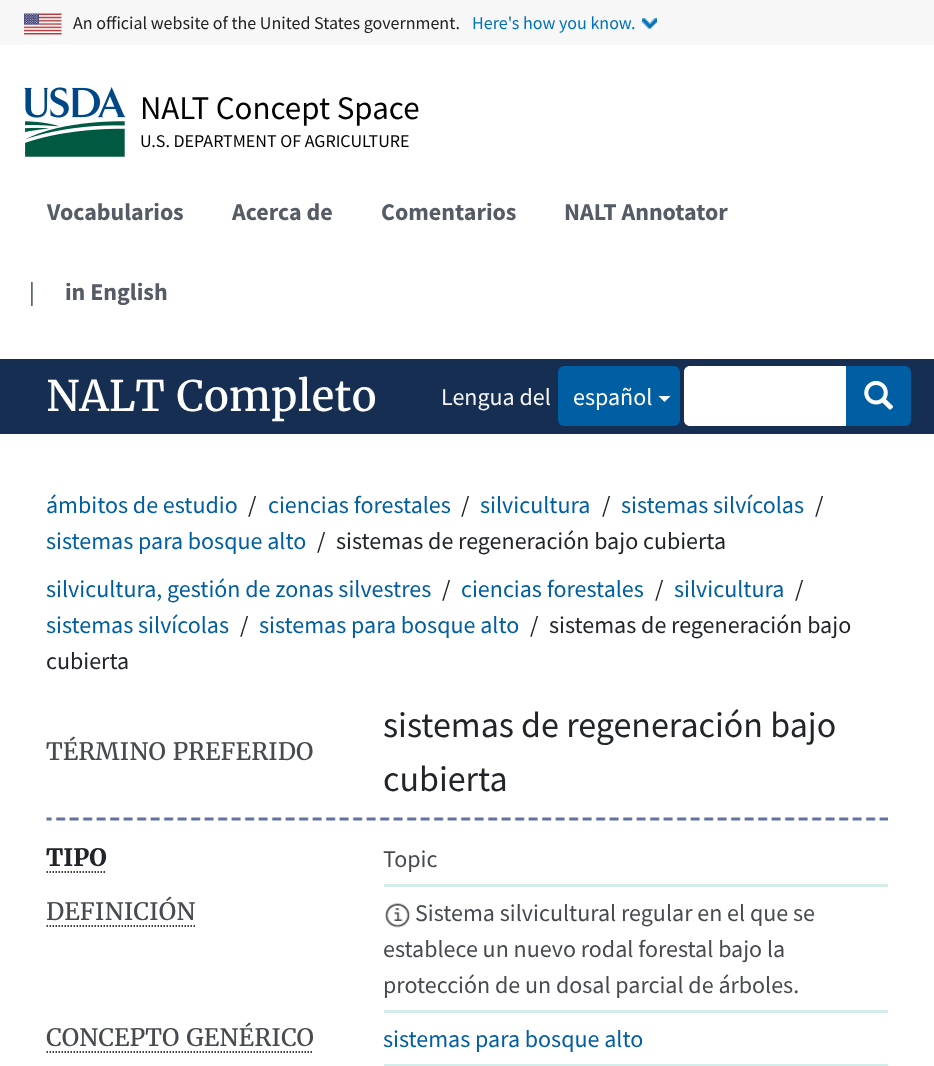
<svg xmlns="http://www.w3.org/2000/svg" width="934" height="1066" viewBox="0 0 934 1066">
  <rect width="100%" height="100%" fill="#fff"/>
  <path d="M0 0h934v45H0z" fill="#f7f7f7"/>
  <image x="24" y="13" width="38" height="22" href="img/1.png"/>
  <image x="642" y="18" width="15" height="11" href="img/2.png"/>
  <image x="24" y="87" width="102" height="70" href="img/3.png"/>
  <path d="M0 359h934v75H0z" fill="#162e51"/>
  <rect x="558" y="366" width="122" height="60" rx="6" fill="#005ea2"/>
  <path d="M658.5 396H670.5L664.5 402Z" fill="#fff"/>
  <path d="M690 366H848V426H690C686.5 426 684 423.5 684 420V372C684 368.5 686.5 366 690 366Z" fill="#fff"/>
  <path d="M846 366H905C908.5 366 911 368.5 911 372V420C911 423.5 908.5 426 905 426H846Z" fill="#005ea2"/>
  <image x="864" y="380" width="29" height="30" href="img/4.png"/>
  <image x="46" y="817" width="842" height="4" href="img/5.png"/>
  <path d="M46.5 872H106.5" fill="none" stroke="#000" stroke-width="1.5" stroke-dasharray="1.5 1.5"/>
  <path d="M384 884h504v3H384z" fill="#d4edeb"/>
  <path d="M46.5 926H195" fill="none" stroke="#000" stroke-width="1.5" stroke-dasharray="1.5 1.5"/>
  <path d="M384 1010h504v3H384z" fill="#d4edeb"/>
  <image x="385" y="903" width="25" height="25" href="img/6.png"/>
  <path d="M46.5 1052H313.5" fill="none" stroke="#000" stroke-width="1.5" stroke-dasharray="1.5 1.5"/>
  <path d="M384 1064h504v2H384z" fill="#d4edeb"/>
  <text x="73" y="29" font-family="Source Sans Pro" font-size="18" fill="#212121">An official website of the United States government.</text>
  <text x="472" y="29" font-family="Source Sans Pro" font-size="18" fill="#0071bc">Here's how you know.</text>
  <text x="140" y="119" font-family="Source Sans Pro" font-size="33" fill="#000">NALT Concept Space</text>
  <text x="140" y="147" font-family="Source Sans Pro" font-size="18" fill="#000">U.S. DEPARTMENT OF AGRICULTURE</text>
  <g font-family="Source Sans Pro" font-size="24" font-weight="bold" fill="#565c65">
    <text x="47" y="220">Vocabularios</text>
    <text x="232" y="220">Acerca de</text>
    <text x="381" y="220">Comentarios</text>
    <text x="564" y="220">NALT Annotator</text>
  </g>
  <text x="29" y="300" font-family="Source Sans Pro" font-size="24" fill="#394554">|</text>
  <text x="65" y="300" font-family="Source Sans Pro" font-size="24" font-weight="bold" fill="#565c65">in English</text>
  <text x="46" y="411" font-family="Merriweather" font-size="42" fill="#fff">NALT Completo</text>
  <text x="441" y="405" font-family="Source Sans Pro" font-size="24" fill="#f3f5f6">Lengua del</text>
  <text x="573" y="405" font-family="Source Sans Pro" font-size="24" fill="#fff">español</text>
  <text x="46" y="513" font-family="Source Sans Pro" font-size="24" fill="#005ea2">ámbitos de estudio</text>
  <text x="248" y="513" font-family="Source Sans Pro" font-size="24" fill="#212529">/</text>
  <text x="268" y="513" font-family="Source Sans Pro" font-size="24" fill="#005ea2">ciencias forestales</text>
  <text x="461" y="513" font-family="Source Sans Pro" font-size="24" fill="#212529">/</text>
  <text x="480" y="513" font-family="Source Sans Pro" font-size="24" fill="#005ea2">silvicultura</text>
  <text x="602" y="513" font-family="Source Sans Pro" font-size="24" fill="#212529">/</text>
  <text x="621" y="513" font-family="Source Sans Pro" font-size="24" fill="#005ea2">sistemas silvícolas</text>
  <text x="815" y="513" font-family="Source Sans Pro" font-size="24" fill="#212529">/</text>
  <text x="46" y="549" font-family="Source Sans Pro" font-size="24" fill="#005ea2">sistemas para bosque alto</text>
  <g font-family="Source Sans Pro" font-size="24" fill="#212529">
    <text x="317" y="549">/</text>
    <text x="336" y="549">sistemas de regeneración bajo cubierta</text>
  </g>
  <text x="46" y="597" font-family="Source Sans Pro" font-size="24" fill="#005ea2">silvicultura, gestión de zonas silvestres</text>
  <text x="442" y="597" font-family="Source Sans Pro" font-size="24" fill="#212529">/</text>
  <text x="461" y="597" font-family="Source Sans Pro" font-size="24" fill="#005ea2">ciencias forestales</text>
  <text x="655" y="597" font-family="Source Sans Pro" font-size="24" fill="#212529">/</text>
  <text x="674" y="597" font-family="Source Sans Pro" font-size="24" fill="#005ea2">silvicultura</text>
  <text x="795" y="597" font-family="Source Sans Pro" font-size="24" fill="#212529">/</text>
  <text x="46" y="633" font-family="Source Sans Pro" font-size="24" fill="#005ea2">sistemas silvícolas</text>
  <text x="240" y="633" font-family="Source Sans Pro" font-size="24" fill="#212529">/</text>
  <text x="259" y="633" font-family="Source Sans Pro" font-size="24" fill="#005ea2">sistemas para bosque alto</text>
  <g font-family="Source Sans Pro" font-size="24" fill="#212529">
    <text x="530" y="633">/</text>
    <text x="549" y="633">sistemas de regeneración bajo</text>
    <text x="46" y="669">cubierta</text>
  </g>
  <text x="46" y="760" font-family="Merriweather" font-size="24" fill="#474b4f">TÉRMINO PREFERIDO</text>
  <g font-family="Source Sans Pro" font-size="36" fill="#212529">
    <text x="383" y="737">sistemas de regeneración bajo</text>
    <text x="383" y="791">cubierta</text>
  </g>
  <text x="46" y="866" font-family="Merriweather" font-size="24" font-weight="bold" fill="#212529">TIPO</text>
  <text x="383" y="867" font-family="Source Sans Pro" font-size="24" fill="#474b4f">Topic</text>
  <text x="46" y="920" font-family="Merriweather" font-size="24" fill="#474b4f">DEFINICIÓN</text>
  <g font-family="Source Sans Pro" font-size="24" fill="#474b4f">
    <text x="415" y="921">Sistema silvicultural regular en el que se</text>
    <text x="383" y="957">establece un nuevo rodal forestal bajo la</text>
    <text x="383" y="993">protección de un dosal parcial de árboles.</text>
  </g>
  <text x="46" y="1046" font-family="Merriweather" font-size="24" fill="#474b4f">CONCEPTO GENÉRICO</text>
  <text x="383" y="1047" font-family="Source Sans Pro" font-size="24" fill="#005ea2">sistemas para bosque alto</text>
</svg>
